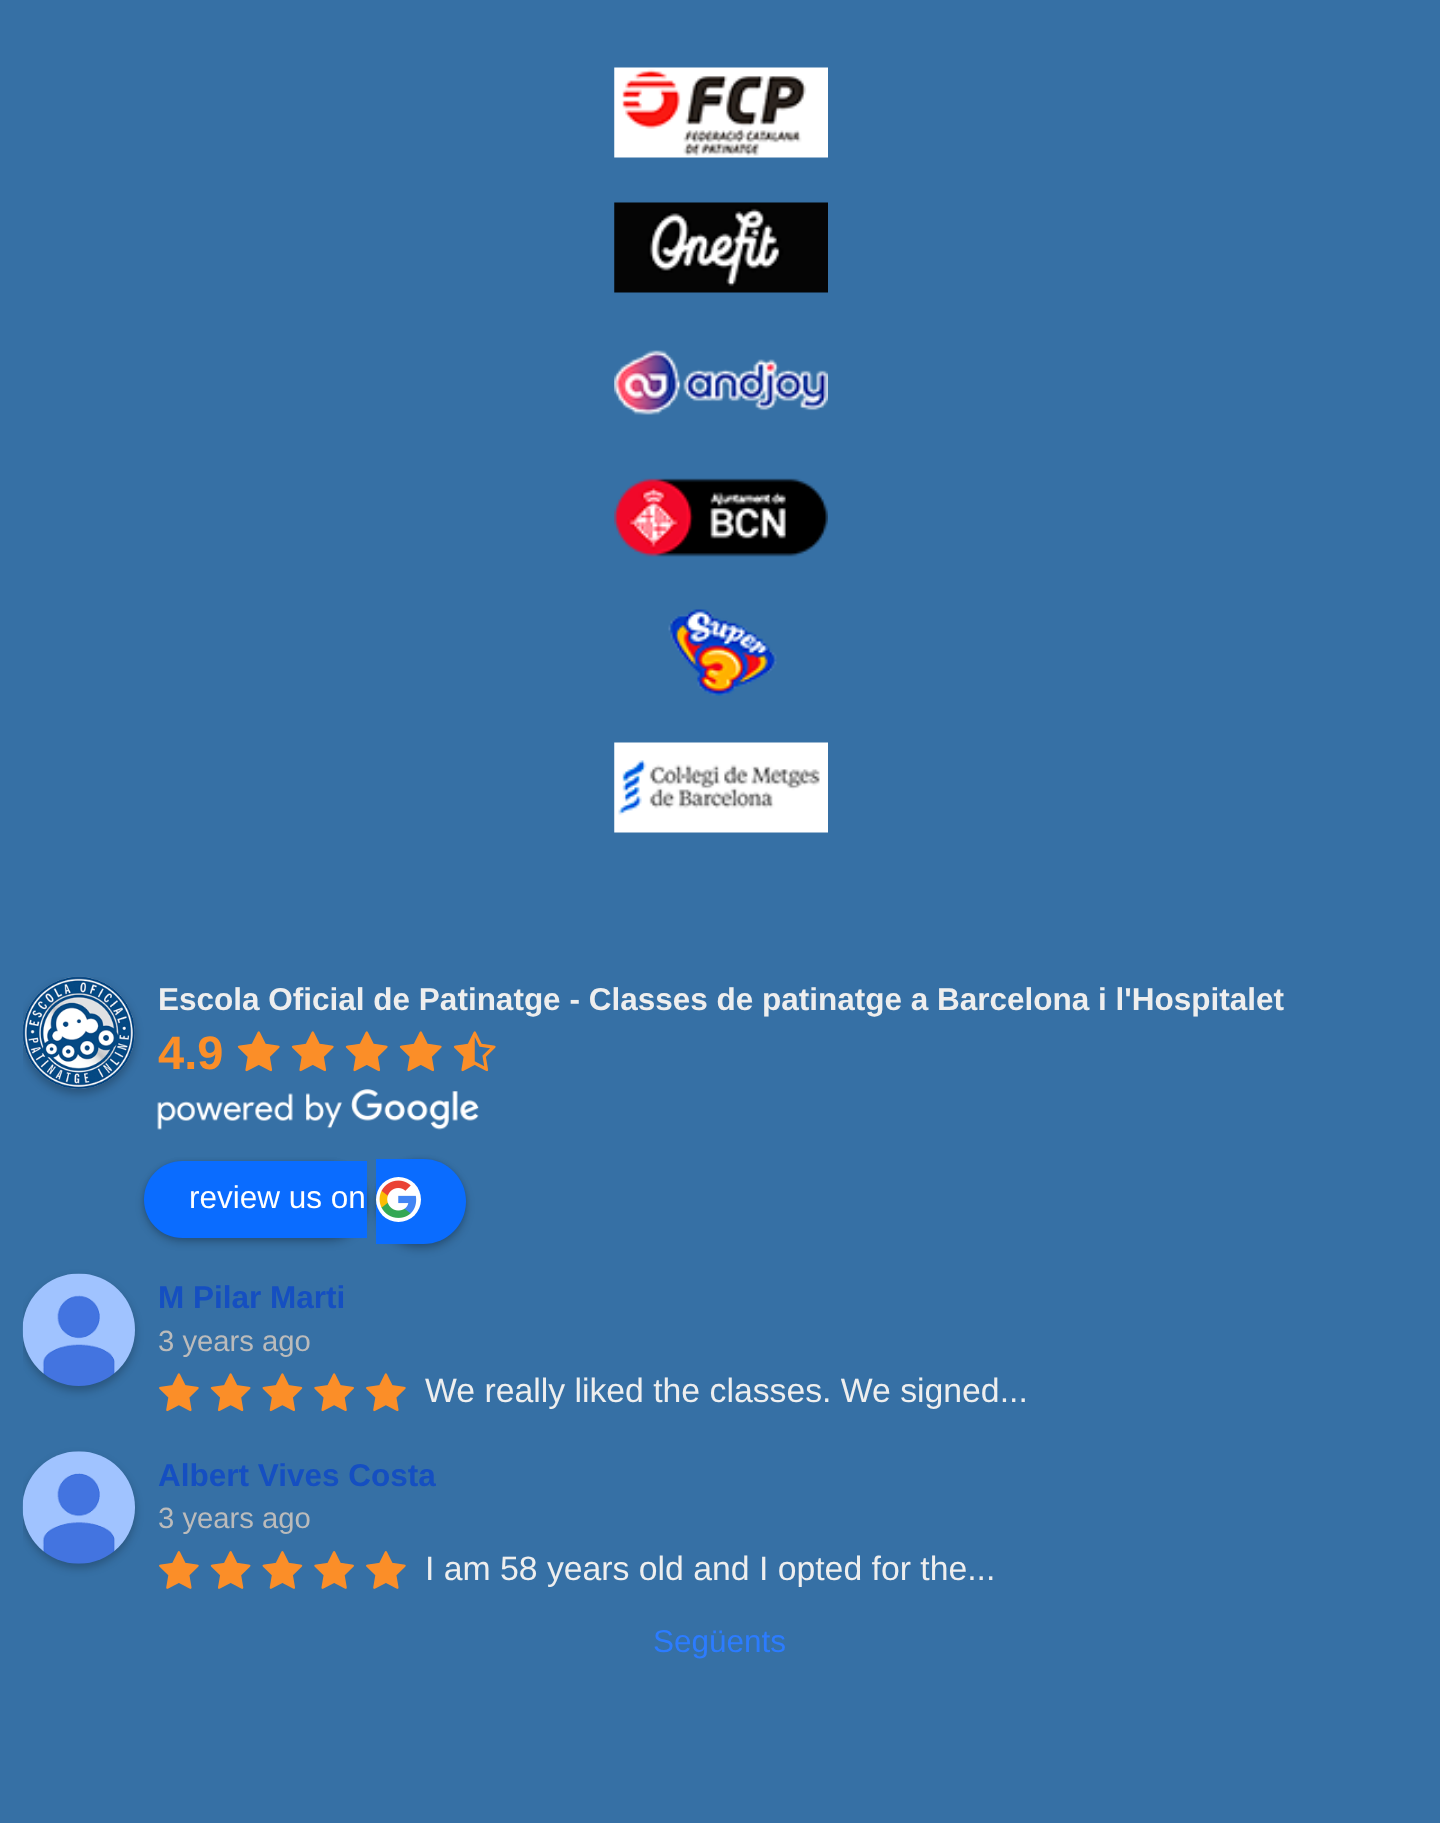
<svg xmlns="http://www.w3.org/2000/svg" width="1440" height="1823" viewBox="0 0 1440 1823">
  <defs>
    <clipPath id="clip1"><path d="M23 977h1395v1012H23z"/></clipPath>
  </defs>
  <rect width="100%" height="100%" fill="#3670a5"/>
  <image x="614" y="67" width="214" height="91" href="img/1.png"/>
  <image x="614" y="202" width="214" height="91" href="img/2.png"/>
  <image x="614" y="350" width="214" height="65" href="img/3.png"/>
  <image x="614" y="478" width="214" height="79" href="img/4.png"/>
  <image x="668" y="609" width="109" height="87" href="img/5.png"/>
  <image x="614" y="742" width="214" height="91" href="img/6.png"/>
  <g clip-path="url(#clip1)">
    <rect x="23" y="981" width="112" height="113" rx="56" fill="#0000003d" filter="blur(4.5px)"/>
  </g>
  <image x="22" y="976" width="113" height="113" href="img/7.png"/>
  <image x="237" y="1031" width="43" height="41" href="img/8.png"/>
  <image x="291" y="1031" width="43" height="41" href="img/8.png"/>
  <image x="345" y="1031" width="43" height="41" href="img/8.png"/>
  <image x="399" y="1031" width="43" height="41" href="img/8.png"/>
  <image x="453" y="1031" width="43" height="41" href="img/9.png"/>
  <image x="157" y="1089" width="322" height="41" href="img/10.png"/>
  <rect x="144" y="1166" width="223" height="76" rx="38" fill="#0000003d" filter="blur(4.5px)"/>
  <rect x="144" y="1161" width="223" height="77" rx="38.5" fill="#0000001f" filter="blur(2px)"/>
  <path d="M182.5 1161H367V1238H182.5C161 1238 144 1221 144 1199.5C144 1178 161 1161 182.5 1161Z" fill="#0a6cff"/>
  <rect x="376" y="1163" width="90" height="86" rx="43" fill="#0000003d" filter="blur(4.5px)"/>
  <rect x="376" y="1159" width="90" height="85" rx="42.5" fill="#0000001f" filter="blur(2px)"/>
  <path d="M376 1159H423.5C447 1159 466 1178 466 1201.5C466 1225 447 1244 423.5 1244H376Z" fill="#0a6cff"/>
  <circle cx="398.5" cy="1199.5" r="22.5" fill="#fff"/>
  <image x="379" y="1180" width="38" height="38" href="img/11.png"/>
  <g clip-path="url(#clip1)">
    <rect x="23" y="1278" width="112" height="113" rx="56" fill="#0000003d" filter="blur(4.5px)"/>
  </g>
  <image x="22" y="1273" width="113" height="113" href="img/12.png"/>
  <image x="159" y="1373" width="40" height="39" href="img/13.png"/>
  <image x="210" y="1373" width="41" height="39" href="img/14.png"/>
  <image x="262" y="1373" width="41" height="39" href="img/15.png"/>
  <image x="314" y="1373" width="40" height="39" href="img/16.png"/>
  <image x="366" y="1373" width="40" height="39" href="img/13.png"/>
  <g clip-path="url(#clip1)">
    <rect x="23" y="1456" width="112" height="112" rx="56" fill="#0000003d" filter="blur(4.5px)"/>
  </g>
  <image x="22" y="1451" width="113" height="113" href="img/17.png"/>
  <image x="159" y="1551" width="40" height="38" href="img/18.png"/>
  <image x="210" y="1551" width="41" height="38" href="img/19.png"/>
  <image x="262" y="1551" width="41" height="38" href="img/20.png"/>
  <image x="314" y="1551" width="40" height="38" href="img/21.png"/>
  <image x="366" y="1551" width="40" height="38" href="img/18.png"/>
  <text x="158" y="1010" font-family="Liberation Sans" font-size="31.5" font-weight="bold" fill="#eee">Escola Oficial de Patinatge - Classes de patinatge a Barcelona i l'Hospitalet</text>
  <text x="158" y="1069" font-family="Liberation Sans" font-size="47" font-weight="bold" fill="#fb8e28">4.9</text>
  <text x="189" y="1208" font-family="Liberation Sans" font-size="31.5" fill="#fff">review us on</text>
  <text x="158" y="1308" font-family="Liberation Sans" font-size="31.5" font-weight="bold" fill="#154fc1">M Pilar Marti</text>
  <text x="158" y="1351" font-family="Liberation Sans" font-size="29.25" fill="#bbb">3 years ago</text>
  <text x="425" y="1402" font-family="Liberation Sans" font-size="33.75" fill="#eee">We really liked the classes. We signed...</text>
  <text x="158" y="1486" font-family="Liberation Sans" font-size="31.5" font-weight="bold" fill="#154fc1">Albert Vives Costa</text>
  <text x="158" y="1528" font-family="Liberation Sans" font-size="29.25" fill="#bbb">3 years ago</text>
  <text x="425" y="1580" font-family="Liberation Sans" font-size="33.75" fill="#eee">I am 58 years old and I opted for the...</text>
  <text x="653" y="1652" font-family="Liberation Sans" font-size="31.5" fill="#2c7cff">Següents</text>
</svg>
